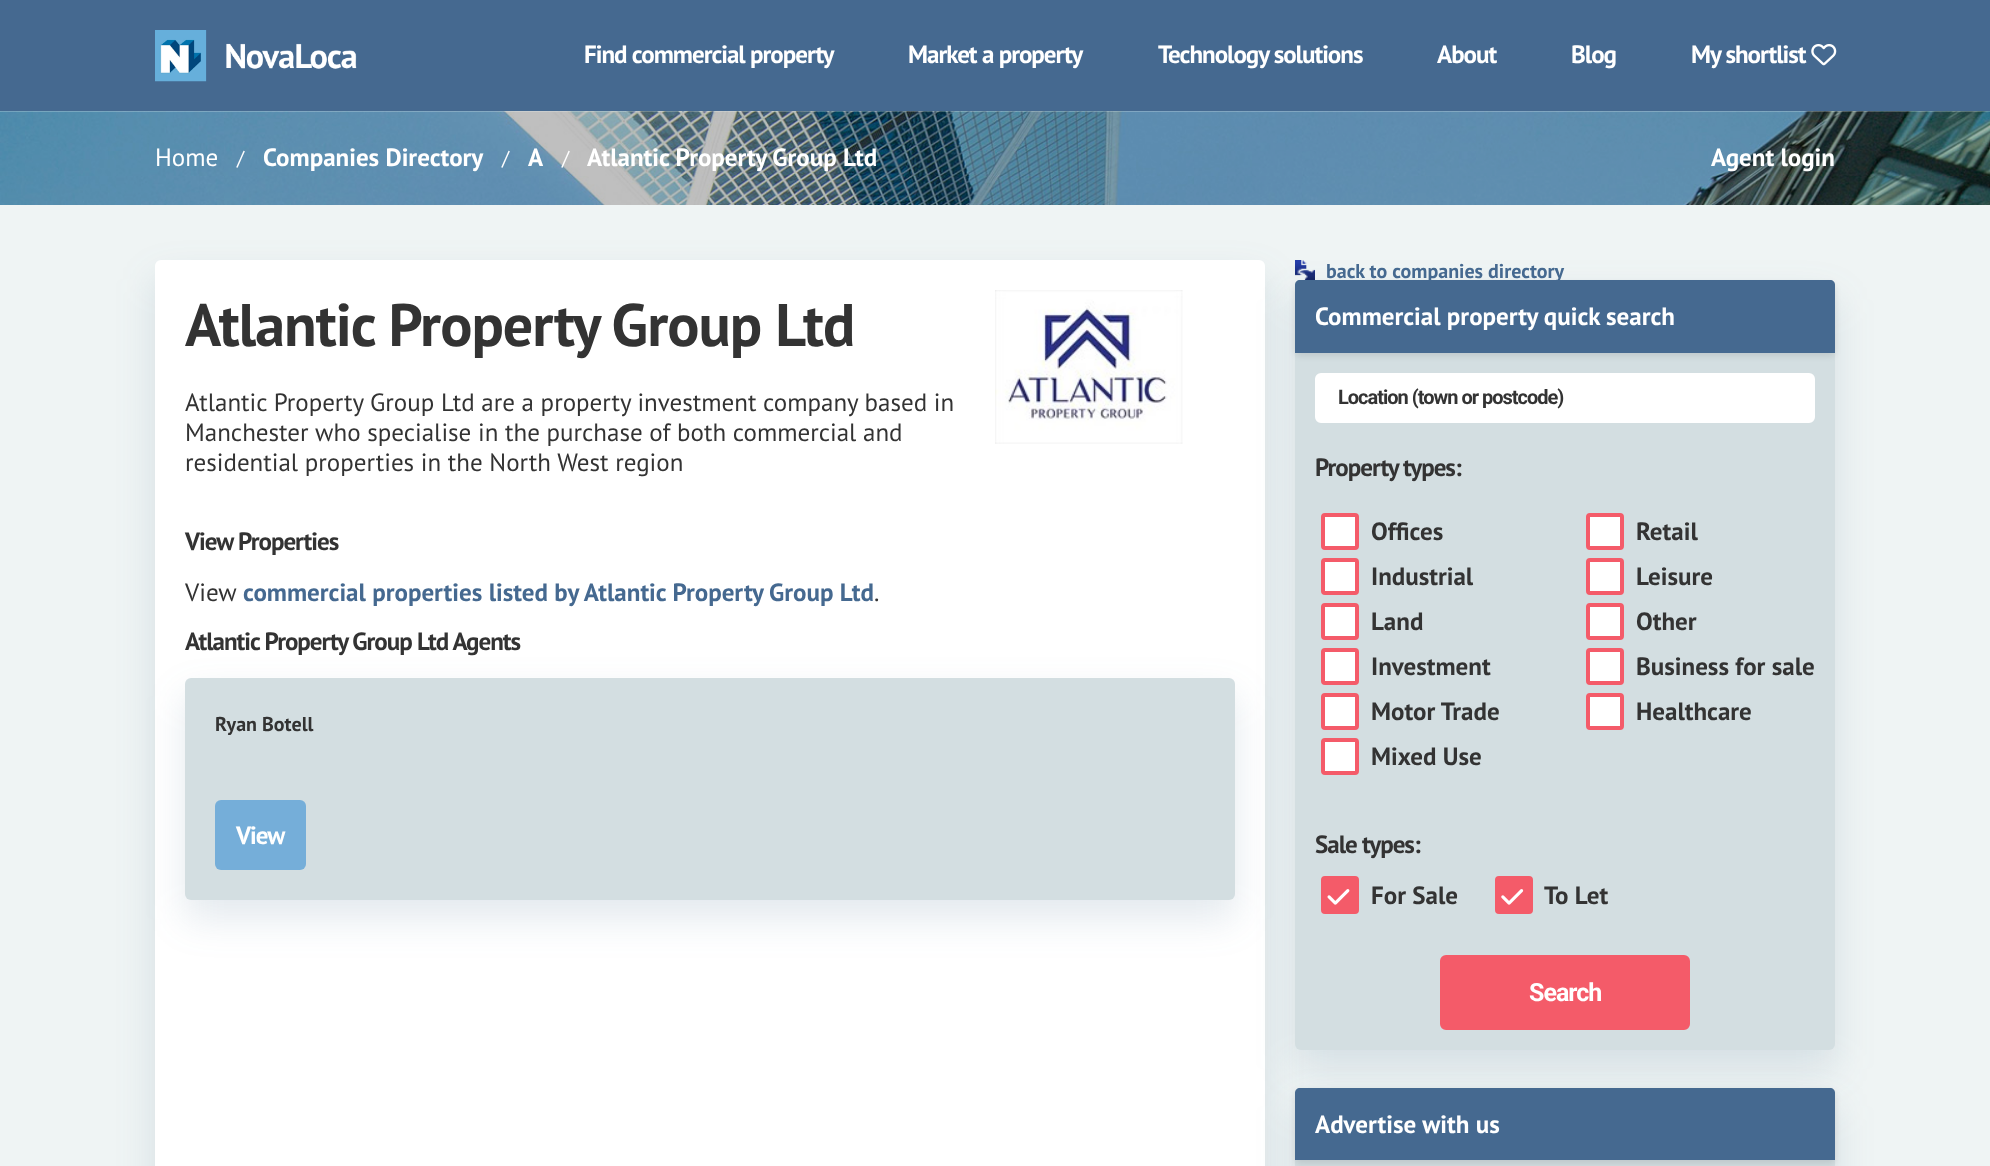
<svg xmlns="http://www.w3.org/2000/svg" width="1990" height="1166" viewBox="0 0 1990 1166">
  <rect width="100%" height="100%" fill="#eff4f4"/>
  <path d="M0 0h1990v111H0z" fill="#456990"/>
  <image x="155" y="30" width="202" height="52" href="img/1.png"/>
  <image x="1811" y="44" width="26" height="22" href="img/2.png"/>
  <image x="0" y="111" width="1990" height="94" href="img/3.png"/>
  <image x="1295" y="260" width="20" height="20" href="img/5.png"/>
  <rect x="155" y="279" width="1110" height="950" rx="6" fill="#46699026" filter="blur(19px)"/>
  <rect x="155" y="260" width="1110" height="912" rx="6" fill="#fff"/>
  <image x="995" y="290" width="188" height="154" href="img/4.png"/>
  <rect x="185" y="696" width="1050" height="223" rx="6" fill="#46699026" filter="blur(19px)"/>
  <rect x="185" y="678" width="1050" height="222" rx="6" fill="#d3dee1"/>
  <rect x="215" y="800" width="91" height="70" rx="6" fill="#75aed9"/>
  <rect x="1295" y="299" width="540" height="770" rx="6" fill="#46699026" filter="blur(19px)"/>
  <g font-family="PT Sans" font-size="25" font-weight="bold" letter-spacing="-1" fill="#fff">
    <text x="584" y="63">Find commercial property</text>
    <text x="908" y="63">Market a property</text>
    <text x="1158" y="63">Technology solutions</text>
    <text x="1437" y="63">About</text>
    <text x="1571" y="63">Blog</text>
    <text x="1691" y="63">My shortlist</text>
  </g>
  <text x="155" y="166" font-family="PT Sans" font-size="25" fill="#fff">Home</text>
  <text x="237" y="165" font-family="PT Sans" font-size="20" fill="#fff">/</text>
  <text x="263" y="166" font-family="PT Sans" font-size="25" font-weight="bold" fill="#fff">Companies Directory</text>
  <text x="502" y="165" font-family="PT Sans" font-size="20" fill="#fff">/</text>
  <text x="528" y="166" font-family="PT Sans" font-size="25" font-weight="bold" fill="#fff">A</text>
  <text x="562" y="165" font-family="PT Sans" font-size="20" fill="#fff">/</text>
  <g font-family="PT Sans" font-size="25" font-weight="bold" fill="#fff">
    <text x="587" y="166">Atlantic Property Group Ltd</text>
    <text x="1711" y="166">Agent login</text>
  </g>
  <text x="185" y="346" font-family="PT Sans" font-size="60" font-weight="bold" letter-spacing="-1" fill="#333">Atlantic Property Group Ltd</text>
  <g font-family="PT Sans" font-size="25" fill="#333">
    <text x="185" y="411">Atlantic Property Group Ltd are a property investment company based in</text>
    <text x="185" y="441">Manchester who specialise in the purchase of both commercial and</text>
    <text x="185" y="471">residential properties in the North West region</text>
  </g>
  <text x="185" y="550" font-family="PT Sans" font-size="25" font-weight="bold" letter-spacing="-1" fill="#333">View Properties</text>
  <text x="185" y="601" font-family="PT Sans" font-size="25" fill="#333">View</text>
  <text x="243" y="601" font-family="PT Sans" font-size="25" font-weight="bold" fill="#456990">commercial properties listed by Atlantic Property Group Ltd</text>
  <text x="874" y="601" font-family="PT Sans" font-size="25" fill="#333">.</text>
  <text x="185" y="650" font-family="PT Sans" font-size="25" font-weight="bold" letter-spacing="-1" fill="#333">Atlantic Property Group Ltd Agents</text>
  <text x="215" y="731" font-family="PT Sans" font-size="20" font-weight="bold" fill="#333">Ryan Botell</text>
  <text x="236" y="844" font-family="PT Sans" font-size="25" font-weight="bold" letter-spacing="-1" fill="#fff">View</text>
  <text x="1326" y="278" font-family="PT Sans" font-size="20" font-weight="bold" fill="#456990">back to companies directory</text>
  <rect x="1295" y="280" width="540" height="770" rx="6" fill="#d3dee1"/>
  <rect x="1295" y="284" width="540" height="72" rx="5" fill="#0a0a0a1a" filter="blur(3px)"/>
  <path d="M1300 280H1830C1833 280 1835 282 1835 285V353H1295V285C1295 282 1297 280 1300 280Z" fill="#456990"/>
  <text x="1315" y="325" font-family="PT Sans" font-size="25" font-weight="bold" fill="#fff">Commercial property quick search</text>
  <rect x="1316.5" y="374.5" width="497" height="47" rx="4.5" fill="#fff" stroke="#fff" stroke-width="3"/>
  <text x="1338" y="404" font-family="Roboto" font-size="20" font-weight="bold" letter-spacing="-1" fill="#333">Location (town or postcode)</text>
  <text x="1315" y="476" font-family="PT Sans" font-size="25" font-weight="bold" letter-spacing="-1" fill="#333">Property types:</text>
  <rect x="1323" y="515" width="34" height="33" rx="2" fill="#fff" stroke="#f45b69" stroke-width="4"/>
  <text x="1371" y="540" font-family="PT Sans" font-size="25" font-weight="bold" fill="#333">Offices</text>
  <rect x="1323" y="560" width="34" height="33" rx="2" fill="#fff" stroke="#f45b69" stroke-width="4"/>
  <text x="1371" y="585" font-family="PT Sans" font-size="25" font-weight="bold" fill="#333">Industrial</text>
  <rect x="1323" y="605" width="34" height="33" rx="2" fill="#fff" stroke="#f45b69" stroke-width="4"/>
  <text x="1371" y="630" font-family="PT Sans" font-size="25" font-weight="bold" fill="#333">Land</text>
  <rect x="1323" y="650" width="34" height="33" rx="2" fill="#fff" stroke="#f45b69" stroke-width="4"/>
  <text x="1371" y="675" font-family="PT Sans" font-size="25" font-weight="bold" fill="#333">Investment</text>
  <rect x="1323" y="695" width="34" height="33" rx="2" fill="#fff" stroke="#f45b69" stroke-width="4"/>
  <text x="1371" y="720" font-family="PT Sans" font-size="25" font-weight="bold" fill="#333">Motor Trade</text>
  <rect x="1323" y="740" width="34" height="33" rx="2" fill="#fff" stroke="#f45b69" stroke-width="4"/>
  <text x="1371" y="765" font-family="PT Sans" font-size="25" font-weight="bold" fill="#333">Mixed Use</text>
  <rect x="1588" y="515" width="34" height="33" rx="2" fill="#fff" stroke="#f45b69" stroke-width="4"/>
  <text x="1636" y="540" font-family="PT Sans" font-size="25" font-weight="bold" fill="#333">Retail</text>
  <rect x="1588" y="560" width="34" height="33" rx="2" fill="#fff" stroke="#f45b69" stroke-width="4"/>
  <text x="1636" y="585" font-family="PT Sans" font-size="25" font-weight="bold" fill="#333">Leisure</text>
  <rect x="1588" y="605" width="34" height="33" rx="2" fill="#fff" stroke="#f45b69" stroke-width="4"/>
  <text x="1636" y="630" font-family="PT Sans" font-size="25" font-weight="bold" fill="#333">Other</text>
  <rect x="1588" y="650" width="34" height="33" rx="2" fill="#fff" stroke="#f45b69" stroke-width="4"/>
  <text x="1636" y="675" font-family="PT Sans" font-size="25" font-weight="bold" fill="#333">Business for sale</text>
  <rect x="1588" y="695" width="34" height="33" rx="2" fill="#fff" stroke="#f45b69" stroke-width="4"/>
  <text x="1636" y="720" font-family="PT Sans" font-size="25" font-weight="bold" fill="#333">Healthcare</text>
  <text x="1315" y="853" font-family="PT Sans" font-size="25" font-weight="bold" letter-spacing="-1" fill="#333">Sale types:</text>
  <rect x="1323" y="878" width="34" height="34" rx="2" fill="#f45b69" stroke="#f45b69" stroke-width="4"/>
  <text x="1371" y="904" font-family="PT Sans" font-size="25" font-weight="bold" fill="#333">For Sale</text>
  <image x="1327" y="889" width="23" height="16" href="img/6.png"/>
  <rect x="1497" y="878" width="34" height="34" rx="2" fill="#f45b69" stroke="#f45b69" stroke-width="4"/>
  <text x="1544" y="904" font-family="PT Sans" font-size="25" font-weight="bold" fill="#333">To Let</text>
  <image x="1501" y="889" width="23" height="16" href="img/7.png"/>
  <rect x="1442" y="957" width="246" height="71" rx="4" fill="#f45b69" stroke="#f45b69" stroke-width="4"/>
  <text x="1529" y="1001" font-family="Roboto" font-size="25" font-weight="bold" letter-spacing="-1" fill="#fff">Search</text>
  <rect x="1295" y="1106" width="540" height="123" rx="6" fill="#46699026" filter="blur(19px)"/>
  <rect x="1295" y="1088" width="540" height="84" rx="6" fill="#d3dee1"/>
  <rect x="1295" y="1091" width="540" height="73" rx="5" fill="#0a0a0a1a" filter="blur(3px)"/>
  <path d="M1300 1088H1830C1833 1088 1835 1090 1835 1093V1160H1295V1093C1295 1090 1297 1088 1300 1088Z" fill="#456990"/>
  <text x="1315" y="1133" font-family="PT Sans" font-size="25" font-weight="bold" fill="#fff">Advertise with us</text>
</svg>
